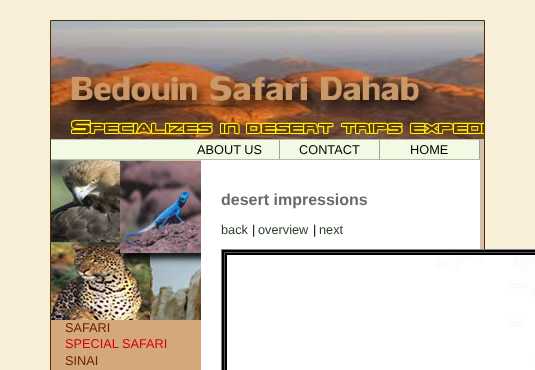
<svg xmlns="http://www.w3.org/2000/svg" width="535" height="370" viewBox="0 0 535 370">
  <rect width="100%" height="100%" fill="#f7efd7"/>
  <path d="M480 140h4v109H480z" fill="#d5bfaa"/>
  <path d="M50.5 20.5h434v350H50.5z" fill="none" stroke="#552b00"/>
  <image x="51" y="21" width="433" height="118" href="img/1.png"/>
  <path d="M51 139h433v1H51z" fill="#bba"/>
  <path d="M51 140h428v19H51z" fill="#f3fae4"/>
  <path d="M51 159h429v1H51z" fill="#bba"/>
  <path d="M279 140h1v19H279z" fill="#a39ea3"/>
  <path d="M379 140h1v19H379z" fill="#a39ea3"/>
  <path d="M479 140h1v19H479z" fill="#a39ea3"/>
  <path d="M201 160h279v210H201z" fill="#fff"/>
  <path d="M222 250h313v120H222z" fill="#000"/>
  <path d="M221 249h314v1H221z" fill="#808080"/>
  <path d="M221 249h1v121H221z" fill="#808080"/>
  <path d="M224 252h311v1H224z" fill="#555"/>
  <path d="M224 252h1v118H224z" fill="#555"/>
  <image x="227" y="255" width="308" height="115" href="img/2.png"/>
  <path d="M51 320h150v50H51z" fill="#d3a87c"/>
  <image x="51" y="160" width="150" height="160" href="img/3.png"/>
  <g font-family="Liberation Sans" font-size="12.75" fill="#000">
    <text x="197" y="154">ABOUT US</text>
    <text x="299" y="154">CONTACT</text>
    <text x="410" y="154">HOME</text>
  </g>
  <text x="221" y="205" font-family="Liberation Sans" font-size="16" font-weight="bold" fill="#6a6a6a">desert impressions</text>
  <text x="221" y="234" font-family="Liberation Sans" font-size="12.75" fill="#293e26">back</text>
  <text x="252" y="234" font-family="Liberation Sans" font-size="12.75" fill="#000">|</text>
  <text x="258" y="234" font-family="Liberation Sans" font-size="12.75" fill="#293e26">overview</text>
  <text x="313" y="234" font-family="Liberation Sans" font-size="12.75" fill="#000">|</text>
  <text x="319" y="234" font-family="Liberation Sans" font-size="12.75" fill="#293e26">next</text>
  <text x="65" y="332" font-family="Liberation Sans" font-size="12.75" fill="#6a2300">SAFARI</text>
  <text x="65" y="348" font-family="Liberation Sans" font-size="12.75" fill="#d90000">SPECIAL SAFARI</text>
  <text x="65" y="365" font-family="Liberation Sans" font-size="12.75" fill="#6a2300">SINAI</text>
</svg>
